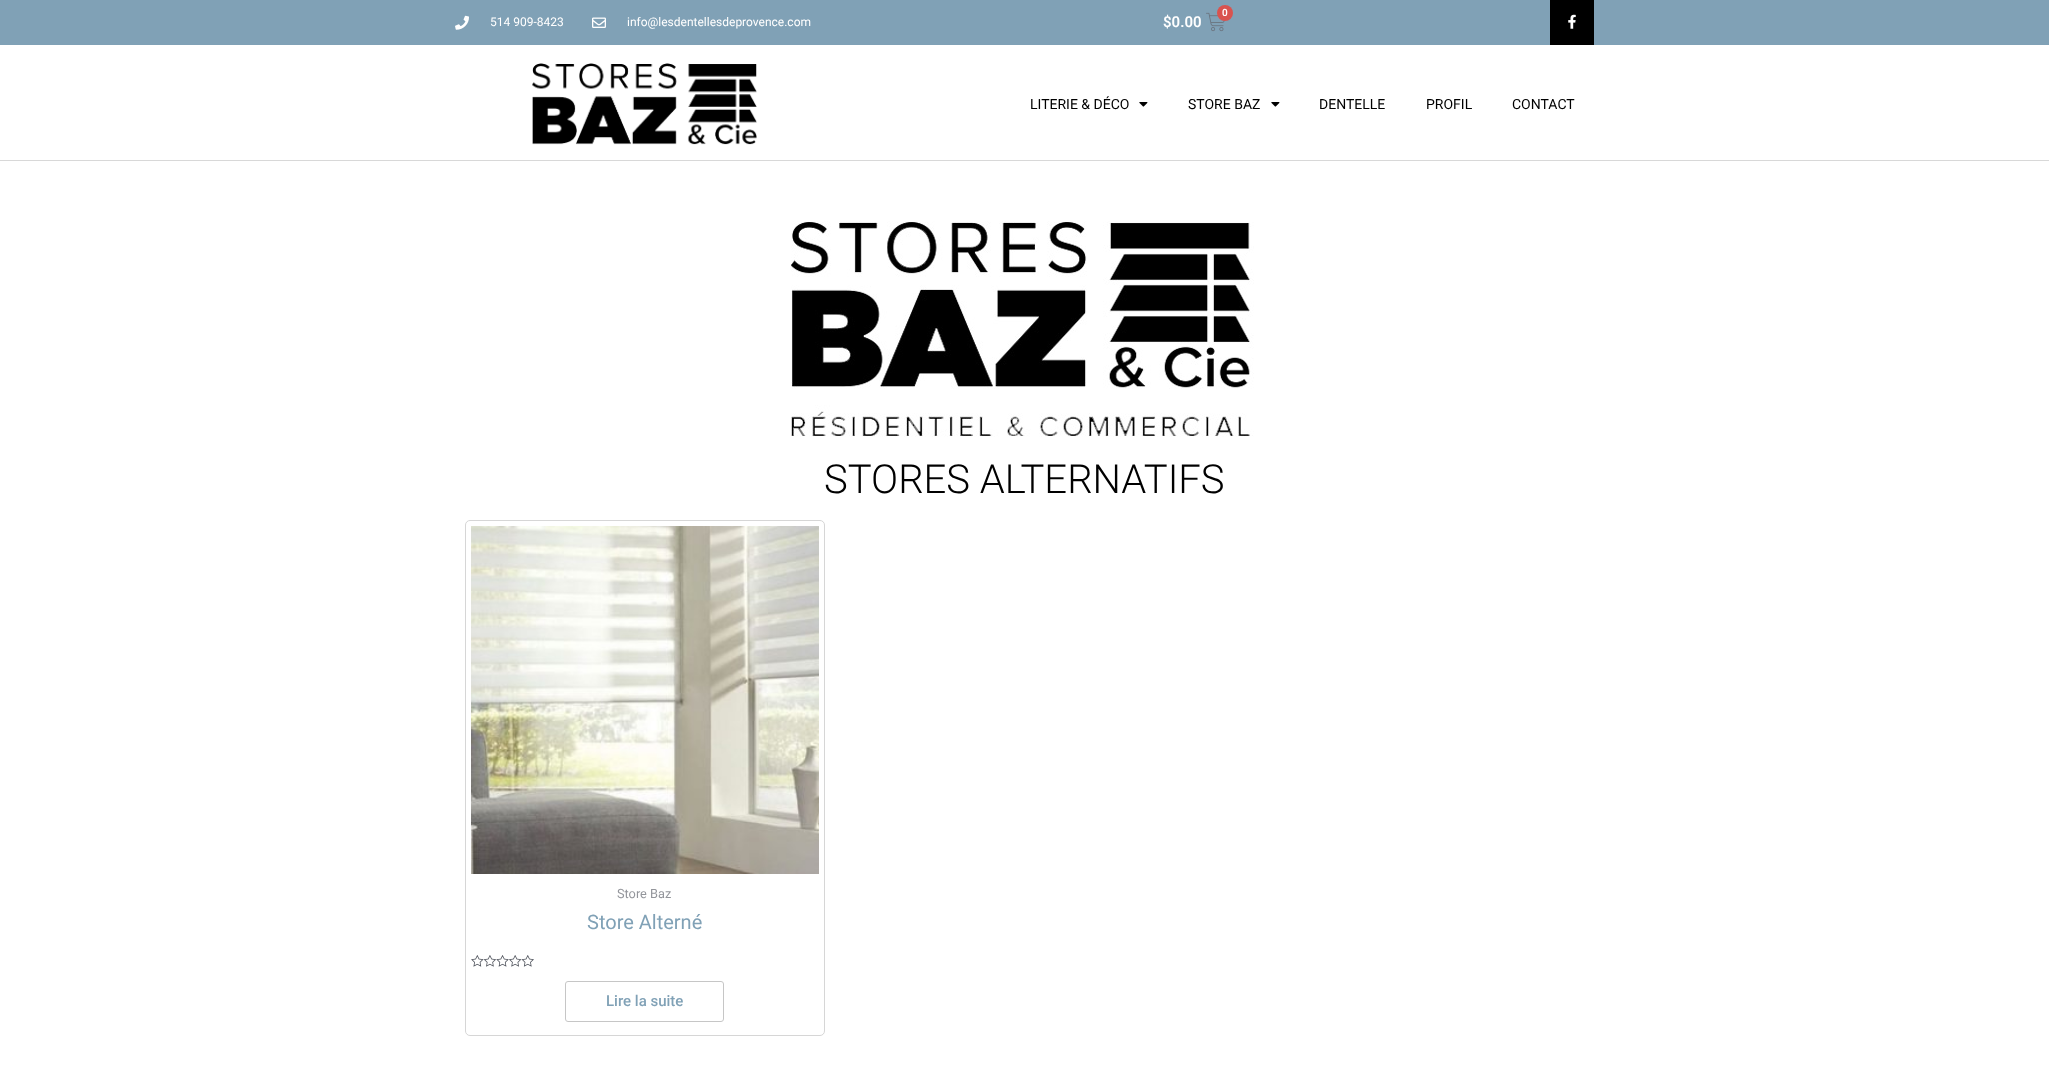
<svg xmlns="http://www.w3.org/2000/svg" width="2049" height="1077" viewBox="0 0 2049 1077">
  <rect width="100%" height="100%" fill="#fff"/>
  <path d="M0 0h2049v45H0z" fill="#80a1b6"/>
  <image x="455" y="15" width="14" height="15" href="img/1.png"/>
  <image x="592" y="17" width="14" height="11" href="img/2.png"/>
  <image x="1206" y="12" width="19" height="20" href="img/3.png"/>
  <circle cx="1225" cy="13" r="8" fill="#d9534f"/>
  <path d="M1550 0h44v45H1550z" fill="#000"/>
  <image x="1568" y="14" width="8" height="15" href="img/4.png"/>
  <path d="M0 160h2049v1H0z" fill="#d8d8d8"/>
  <image x="532" y="63" width="225" height="82" href="img/5.png"/>
  <image x="1139" y="102" width="9" height="5" href="img/6.png"/>
  <image x="1271" y="102" width="9" height="5" href="img/6.png"/>
  <image x="791" y="221" width="463" height="216" href="img/7.png"/>
  <rect x="465.5" y="520.5" width="359" height="515" rx="4.5" fill="none" stroke="#d6d6d6"/>
  <image x="471" y="526" width="348" height="348" href="img/8.png"/>
  <image x="471" y="955" width="63" height="12" href="img/9.png"/>
  <rect x="565.5" y="981.5" width="158" height="40" rx="2.5" fill="none" stroke="#c6c6c6"/>
  <g font-family="Roboto" font-size="12" fill="#fff">
    <text x="490" y="26">514 909-8423</text>
    <text x="627" y="26">info@lesdentellesdeprovence.com</text>
  </g>
  <text x="1222" y="16" font-family="Roboto" font-size="10" font-weight="600" fill="#fff">0</text>
  <text x="1163" y="27" font-family="Roboto" font-size="15" font-weight="600" fill="#fff">$0.00</text>
  <g font-family="Roboto" font-size="14" fill="#000">
    <text x="1030" y="109">LITERIE &amp; DÉCO</text>
    <text x="1188" y="109">STORE BAZ</text>
    <text x="1319" y="109">DENTELLE</text>
    <text x="1426" y="109">PROFIL</text>
    <text x="1512" y="109">CONTACT</text>
  </g>
  <text x="824" y="493" font-family="Roboto" font-size="40" font-weight="300" fill="#000">STORES ALTERNATIFS</text>
  <text x="617" y="898" font-family="Roboto" font-size="12.75" fill="#93959b">Store Baz</text>
  <text x="587" y="929" font-family="Roboto" font-size="20" fill="#80a1b6">Store Alterné</text>
  <text x="606" y="1006" font-family="Roboto" font-size="15" font-weight="500" fill="#80a1b6">Lire la suite</text>
</svg>
